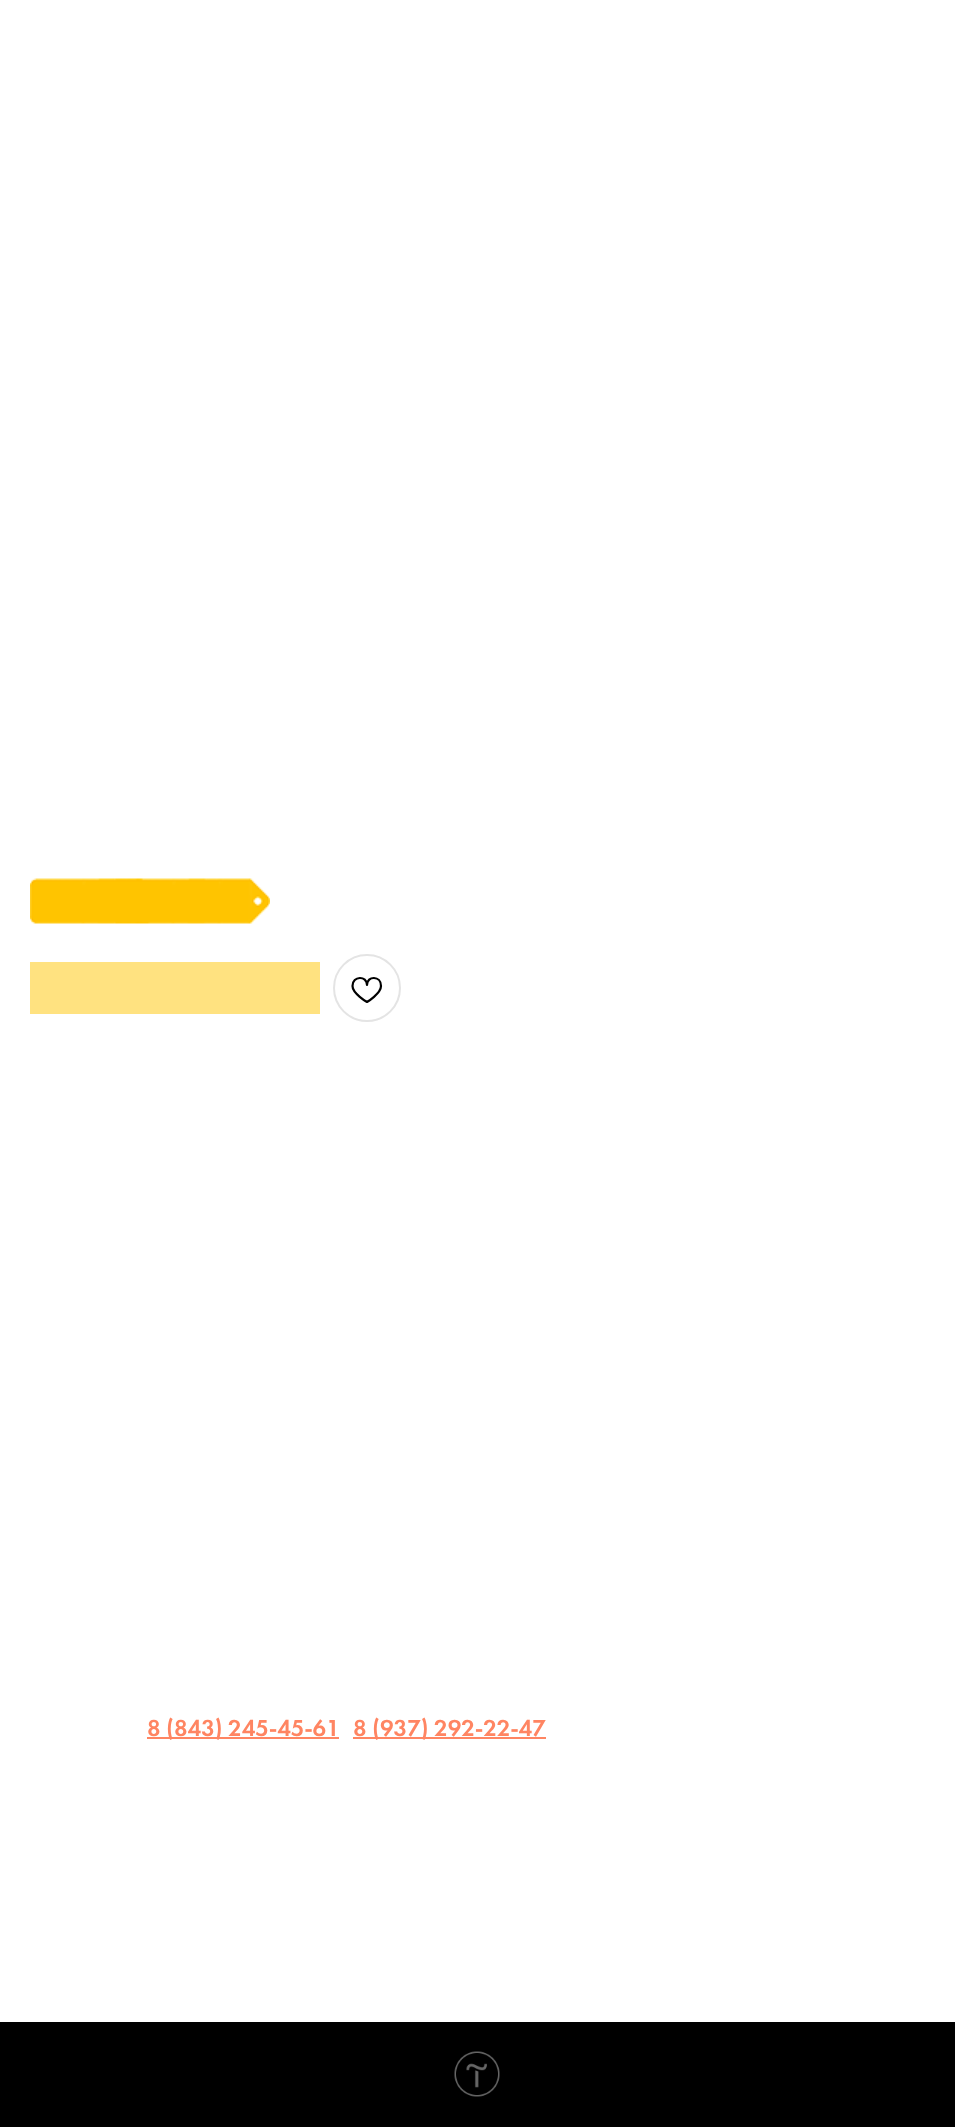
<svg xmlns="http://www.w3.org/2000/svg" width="955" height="2127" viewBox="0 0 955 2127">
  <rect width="100%" height="100%" fill="#fff"/>
  <image x="30" y="878" width="240" height="46" href="img/1.png"/>
  <path d="M30 962h290v52H30z" fill="#ffe280"/>
  <circle cx="367" cy="988" r="33" fill="none" stroke="#e4e4e4" stroke-width="2"/>
  <path d="M381 986C381 993.5 367 1002 367 1002C367 1002 352.5 993.5 352.5 986C352.5 975.5 367 975.5 367 985C367 975.5 381 975.5 381 986Z" fill="none" stroke="#000" stroke-width="2.2" stroke-linejoin="round"/>
  <path d="M147 1737h192v2H147z" fill="#ff8562"/>
  <path d="M353 1737h193v2H353z" fill="#ff8562"/>
  <path d="M0 2022h955v105H0z" fill="#000"/>
  <image x="454" y="2051" width="46" height="46" href="img/2.png"/>
  <g font-family="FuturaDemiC" font-size="24" font-weight="600" fill="#ff8562">
    <text x="147" y="1736">8 (843) 245-45-61</text>
    <text x="353" y="1736">8 (937) 292-22-47</text>
  </g>
</svg>
